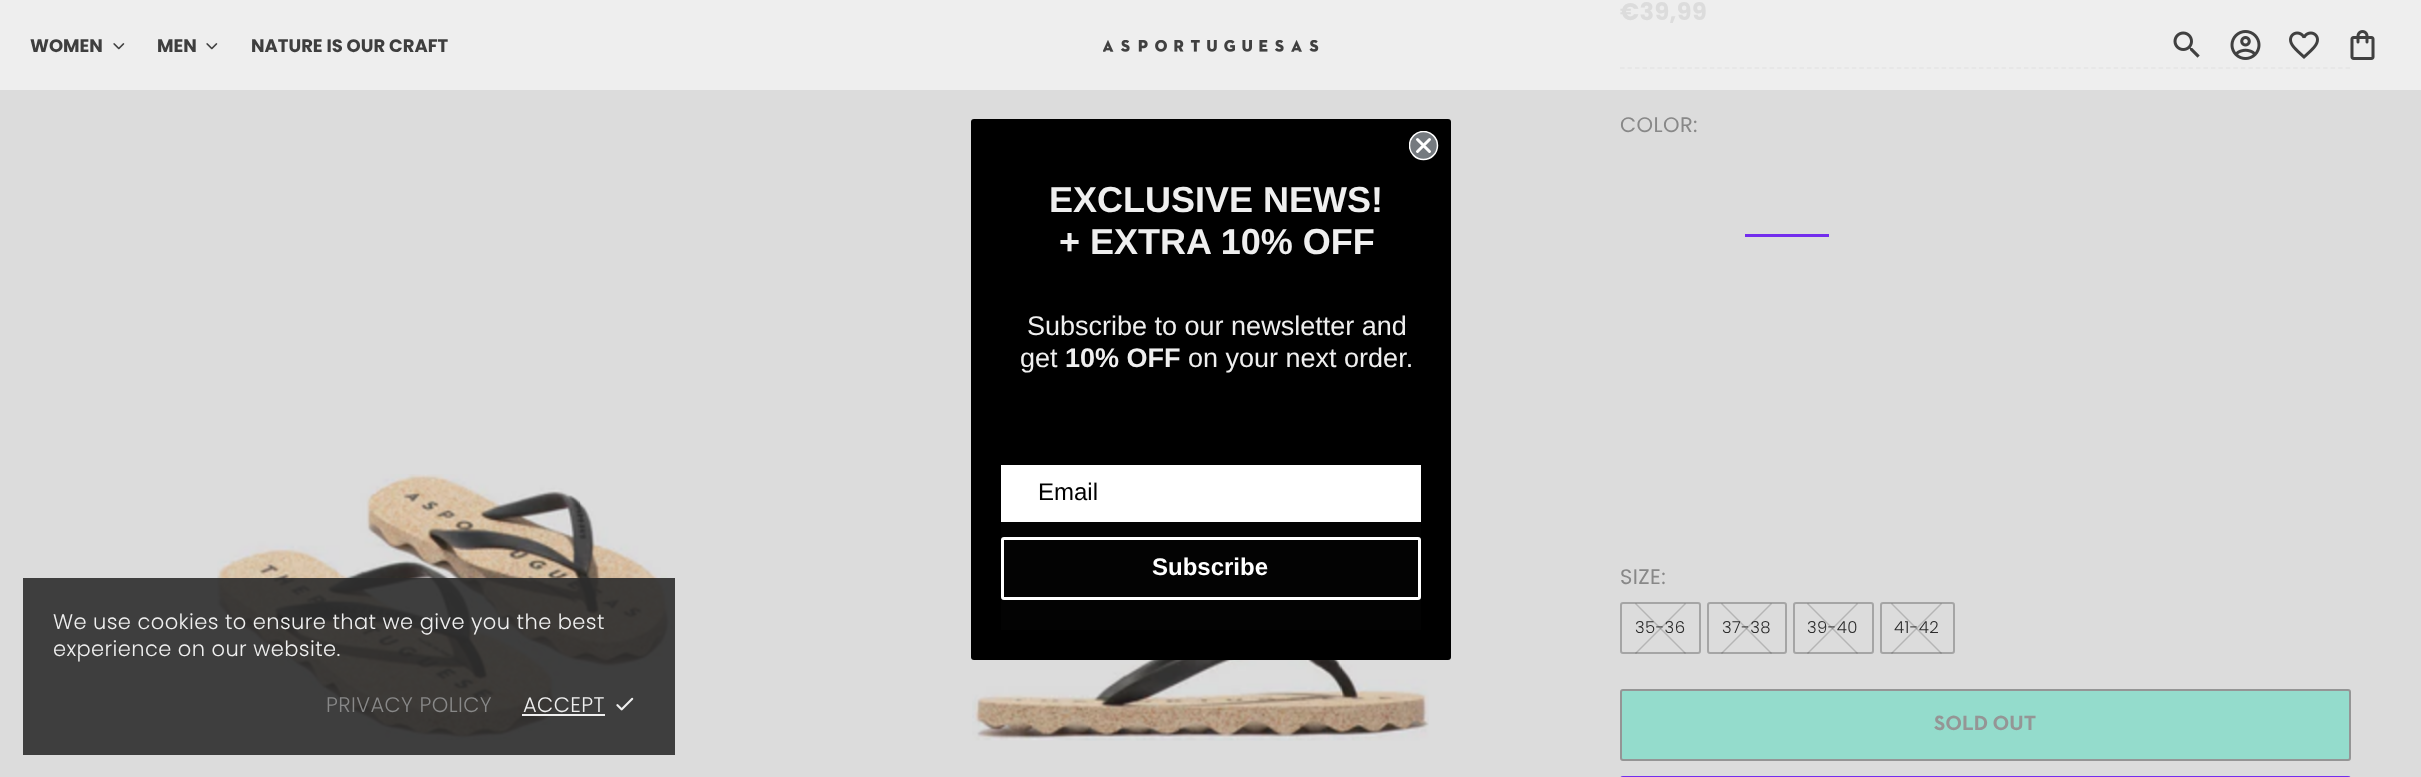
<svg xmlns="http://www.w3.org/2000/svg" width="2421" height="777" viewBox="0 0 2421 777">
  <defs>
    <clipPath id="clip1"><path d="M1409 131h30v30H1409z"/></clipPath>
  </defs>
  <rect width="100%" height="100%" fill="#dcdcdc"/>
  <path d="M0 0h2421v90H0z" fill="#eee"/>
  <image x="113" y="43" width="12" height="7" href="img/1.png"/>
  <image x="206" y="43" width="12" height="7" href="img/1.png"/>
  <image x="1103" y="40" width="216" height="12" href="img/2.png"/>
  <image x="2173" y="31" width="27" height="27" href="img/3.png"/>
  <image x="2230" y="30" width="31" height="30" href="img/4.png"/>
  <image x="2289" y="31" width="30" height="28" href="img/5.png"/>
  <image x="2350" y="30" width="25" height="30" href="img/6.png"/>
  <image x="217" y="474" width="456" height="266" href="img/7.png"/>
  <image x="972" y="659" width="457" height="82" href="img/8.png"/>
  <path d="M1620 68H2350.5" fill="none" stroke="#e5e5e5" stroke-width="1.5" stroke-dasharray="4.5 2.98"/>
  <path d="M1745 234h84v3H1745z" fill="#732ded"/>
  <rect x="1621" y="603" width="79" height="50" rx="2" fill="none" stroke="#a5a5a5" stroke-width="2"/>
  <rect x="1708" y="603" width="78" height="50" rx="2" fill="none" stroke="#a5a5a5" stroke-width="2"/>
  <rect x="1794" y="603" width="79" height="50" rx="2" fill="none" stroke="#a5a5a5" stroke-width="2"/>
  <rect x="1881" y="603" width="73" height="50" rx="2" fill="none" stroke="#a5a5a5" stroke-width="2"/>
  <rect x="1621" y="690" width="729" height="70" rx="2" fill="#94dccc" stroke="#959595" stroke-width="2"/>
  <rect x="1621" y="777" width="729" height="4" rx="2" fill="none" stroke="#732ded" stroke-width="2"/>
  <rect x="971" y="119" width="480" height="541" rx="3" fill="#000"/>
  <circle cx="1423.5" cy="145.5" r="14" fill="#757a7f"/>
  <g clip-path="url(#clip1)">
    <circle cx="1423.5" cy="145.5" r="14" fill="none" stroke="#fff" stroke-width="1.5"/>
  </g>
  <path d="M1417.5 139.5L1429.5 151.5M1417.5 151.5L1429.5 139.5Z" fill="none" stroke="#fff" stroke-width="3" stroke-linecap="round" stroke-linejoin="round"/>
  <path d="M1001 465h420v57H1001z" fill="#fff"/>
  <path d="M1001 522h420v108H1001z" fill="#030303"/>
  <rect x="1002.5" y="538.5" width="417" height="60" rx="1.5" fill="none" stroke="#fff" stroke-width="3"/>
  <path d="M23 578h652v177H23z" fill="#2c2c2ce6"/>
  <path d="M522 714h83v2H522z" fill="#efefef"/>
  <image x="616" y="697" width="18" height="14" href="img/9.png"/>
  <g font-family="Poppins" font-size="18" font-weight="bold" fill="#3e3e3e">
    <text x="30" y="52">WOMEN</text>
    <text x="157" y="52">MEN</text>
    <text x="251" y="52">NATURE IS OUR CRAFT</text>
  </g>
  <text x="1620" y="20" font-family="Poppins" font-size="24" font-weight="bold" letter-spacing="0.4" fill="#dcdcdc">€39,99</text>
  <g font-family="Poppins" font-size="21" letter-spacing="0.4" fill="#888">
    <text x="1620" y="132">COLOR:</text>
    <text x="1620" y="584">SIZE:</text>
  </g>
  <text x="1635" y="633" font-family="Poppins" font-size="16.5" font-weight="300" letter-spacing="0.4" fill="#2c2c2c">35-36</text>
  <path d="M1636 603L1686 653L1685 654L1635 604Z" fill="#28282836"/>
  <path d="M1635 653L1685 603L1686 604L1636 654Z" fill="#28282836"/>
  <text x="1722" y="633" font-family="Poppins" font-size="16.5" font-weight="300" letter-spacing="0.4" fill="#2c2c2c">37-38</text>
  <path d="M1722 603L1772 653L1771 654L1721 604Z" fill="#28282836"/>
  <path d="M1721 653L1771 603L1772 604L1722 654Z" fill="#28282836"/>
  <text x="1807" y="633" font-family="Poppins" font-size="16.5" font-weight="300" letter-spacing="0.4" fill="#2c2c2c">39-40</text>
  <path d="M1808 603L1858 653L1857 654L1807 604Z" fill="#28282836"/>
  <path d="M1807 653L1857 603L1858 604L1808 654Z" fill="#28282836"/>
  <text x="1894" y="633" font-family="Poppins" font-size="16.5" font-weight="300" letter-spacing="0.4" fill="#2c2c2c">41-42</text>
  <path d="M1892 603L1942 653L1941 654L1891 604Z" fill="#28282836"/>
  <path d="M1891 653L1941 603L1942 604L1892 654Z" fill="#28282836"/>
  <text x="1934" y="730" font-family="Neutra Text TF" font-size="21" font-weight="bold" fill="#959595">SOLD OUT</text>
  <g font-family="Liberation Sans" font-size="36" font-weight="bold" fill="#efefef">
    <text x="1049" y="212">EXCLUSIVE NEWS!</text>
    <text x="1059" y="254">+ EXTRA 10% OFF</text>
  </g>
  <g font-family="Liberation Sans" font-size="27" fill="#efefef">
    <text x="1027" y="335">Subscribe to our newsletter and</text>
    <text x="1020" y="367">get</text>
  </g>
  <text x="1065" y="367" font-family="Liberation Sans" font-size="27" font-weight="bold" fill="#efefef">10% OFF</text>
  <text x="1188" y="367" font-family="Liberation Sans" font-size="27" fill="#efefef">on your next order.</text>
  <text x="1038" y="500" font-family="Liberation Sans" font-size="24" fill="#000">Email</text>
  <text x="1152" y="575" font-family="Liberation Sans" font-size="24" font-weight="bold" fill="#fff">Subscribe</text>
  <g font-family="Poppins" font-size="21" font-weight="300" letter-spacing="0.4" fill="#efefef">
    <text x="53" y="629">We use cookies to ensure that we give you the best</text>
    <text x="53" y="656">experience on our website.</text>
  </g>
  <text x="326" y="712" font-family="Poppins" font-size="21" font-weight="300" letter-spacing="0.4" fill="#888">PRIVACY POLICY</text>
  <text x="523" y="712" font-family="Poppins" font-size="21" font-weight="300" letter-spacing="0.4" fill="#efefef">ACCEPT</text>
</svg>
